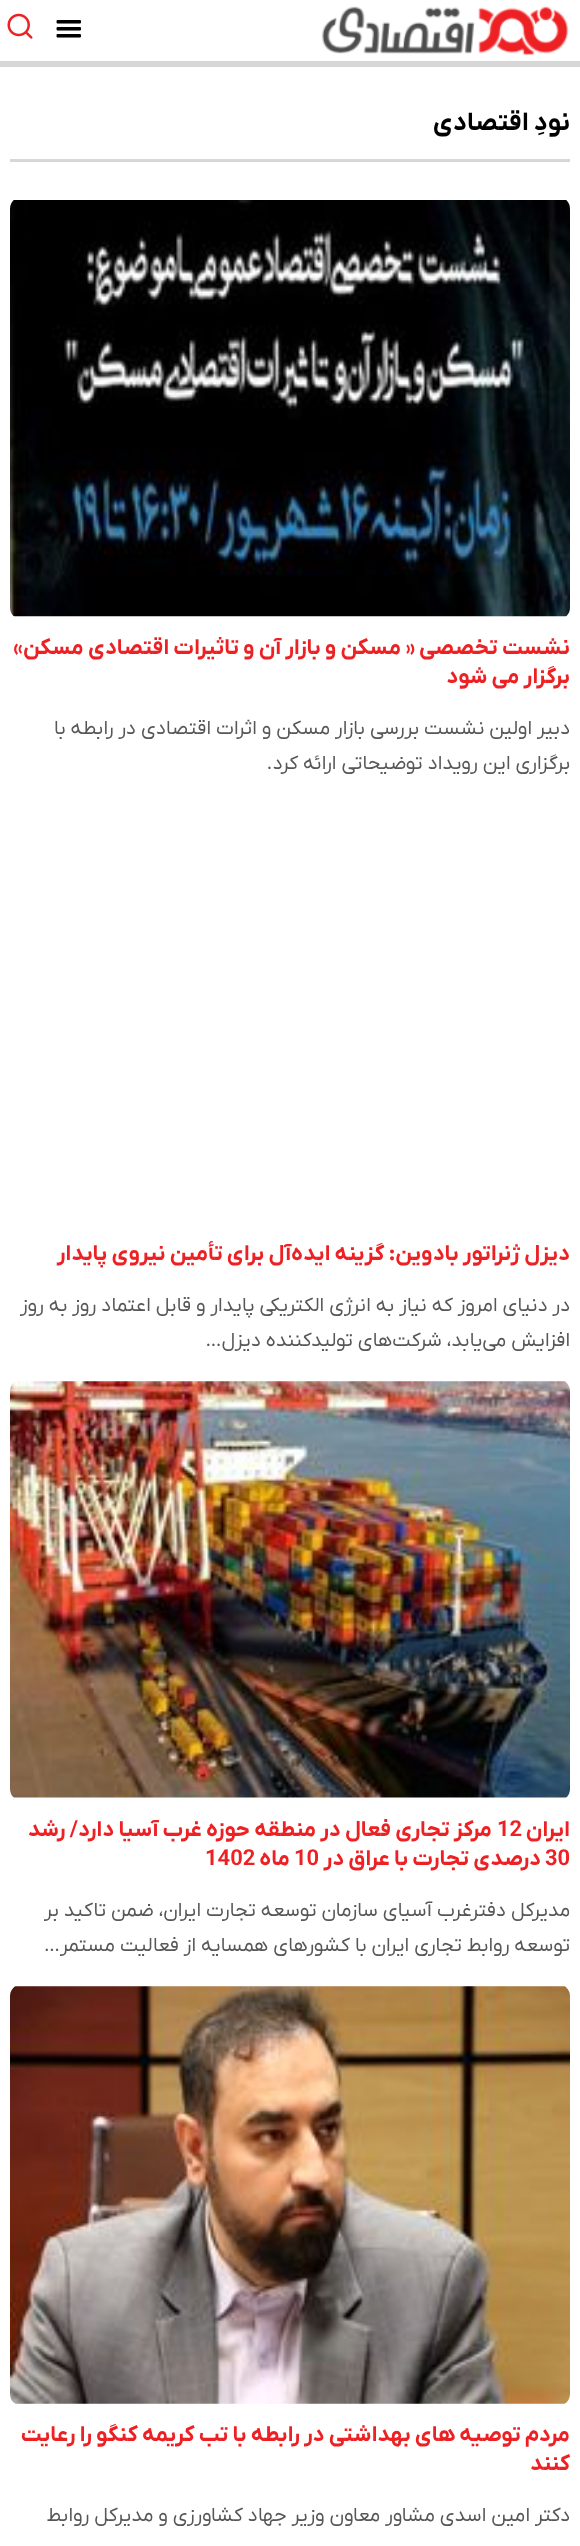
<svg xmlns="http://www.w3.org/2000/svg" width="580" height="2546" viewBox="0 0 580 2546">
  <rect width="100%" height="100%" fill="#fff"/>
  <image x="321" y="6" width="248" height="49" href="img/1.png"/>
  <image x="56" y="20" width="25" height="18" href="img/2.png"/>
  <image x="7" y="13" width="26" height="26" href="img/3.png"/>
  <path d="M0 61h580v6H0z" fill="#d7d7d7"/>
  <path d="M10 159h560v3H10z" fill="#d7d7d7"/>
  <image x="10" y="200" width="560" height="417" href="img/4.png"/>
  <image x="10" y="1381" width="560" height="417" href="img/5.png"/>
  <image x="10" y="1986" width="560" height="418" href="img/6.png"/>
  <text x="570" y="130" font-family="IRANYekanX" font-size="26" font-weight="bold" direction="rtl" fill="#000">نودِ اقتصادی</text>
  <g font-family="IRANYekanX" font-size="22" font-weight="bold" direction="rtl" fill="#ed2124">
    <text x="570" y="654">نشست تخصصی « مسکن و بازار آن و تاثیرات اقتصادی مسکن»</text>
    <text x="570" y="683">برگزار می شود</text>
  </g>
  <g font-family="IRANYekanX" font-size="20" direction="rtl" fill="#575757">
    <text x="570" y="734">دبیر اولین نشست بررسی بازار مسکن و اثرات اقتصادی در رابطه با</text>
    <text x="570" y="769">برگزاری این رویداد توضیحاتی ارائه کرد.</text>
  </g>
  <text x="570" y="1260" font-family="IRANYekanX" font-size="22" font-weight="bold" direction="rtl" fill="#ed2124">دیزل ژنراتور بادوین: گزینه ایده‌آل برای تأمین نیروی پایدار</text>
  <g font-family="IRANYekanX" font-size="20" direction="rtl" fill="#575757">
    <text x="570" y="1311">در دنیای امروز که نیاز به انرژی الکتریکی پایدار و قابل اعتماد روز به روز</text>
    <text x="570" y="1346">افزایش می‌یابد، شرکت‌های تولیدکننده دیزل…</text>
  </g>
  <text x="570" y="1836" font-family="IRANYekanX" font-size="22" font-weight="bold" direction="rtl" fill="#ed2124">ایران</text>
  <text x="497" y="1836" font-family="IRANYekanX" font-size="22" font-weight="bold" fill="#ed2124">12</text>
  <text x="492" y="1836" font-family="IRANYekanX" font-size="22" font-weight="bold" direction="rtl" fill="#ed2124">مرکز تجاری فعال در منطقه حوزه غرب آسیا دارد/ رشد</text>
  <text x="545" y="1865" font-family="IRANYekanX" font-size="22" font-weight="bold" fill="#ed2124">30</text>
  <text x="541" y="1865" font-family="IRANYekanX" font-size="22" font-weight="bold" direction="rtl" fill="#ed2124">درصدی تجارت با عراق در</text>
  <text x="294" y="1865" font-family="IRANYekanX" font-size="22" font-weight="bold" fill="#ed2124">10</text>
  <text x="290" y="1865" font-family="IRANYekanX" font-size="22" font-weight="bold" direction="rtl" fill="#ed2124">ماه</text>
  <text x="205" y="1865" font-family="IRANYekanX" font-size="22" font-weight="bold" fill="#ed2124">1402</text>
  <g font-family="IRANYekanX" font-size="20" direction="rtl" fill="#575757">
    <text x="570" y="1916">مدیرکل دفترغرب آسیای سازمان توسعه تجارت ایران، ضمن تاکید بر</text>
    <text x="570" y="1951">توسعه روابط تجاری ایران با کشورهای همسایه از فعالیت مستمر…</text>
  </g>
  <g font-family="IRANYekanX" font-size="22" font-weight="bold" direction="rtl" fill="#ed2124">
    <text x="570" y="2441">مردم توصیه های بهداشتی در رابطه با تب کریمه کنگو را رعایت</text>
    <text x="570" y="2470">کنند</text>
  </g>
  <text x="570" y="2521" font-family="IRANYekanX" font-size="20" direction="rtl" fill="#575757">دکتر امین اسدی مشاور معاون وزیر جهاد کشاورزی و مدیرکل روابط</text>
</svg>
